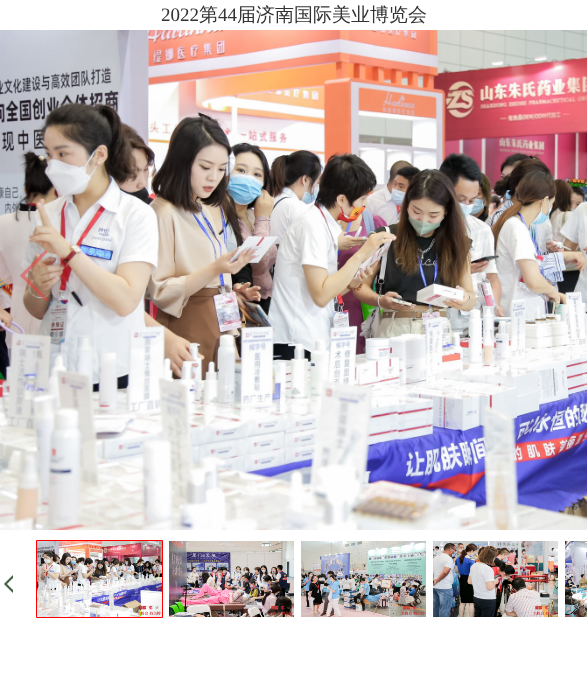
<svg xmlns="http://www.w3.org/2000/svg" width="587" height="673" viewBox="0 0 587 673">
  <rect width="100%" height="100%" fill="#fff"/>
  <image x="0" y="30" width="587" height="500" href="img/1.png"/>
  <image x="20" y="250" width="28" height="51" href="img/2.png"/>
  <image x="4" y="575" width="9" height="18" href="img/3.png"/>
  <path d="M36.5 540.5h126v77H36.5z" fill="none" stroke="#f00"/>
  <image x="37" y="541" width="125" height="76" href="img/4.png"/>
  <image x="169" y="541" width="125" height="76" href="img/5.png"/>
  <image x="301" y="541" width="125" height="76" href="img/6.png"/>
  <image x="433" y="541" width="125" height="76" href="img/7.png"/>
  <image x="565" y="541" width="22" height="76" href="img/8.png"/>
  <text x="161" y="21" font-family="Liberation Serif" font-size="19" fill="#333">2022</text>
  <text x="199" y="21" font-family="WenQuanYi Zen Hei" font-size="19" font-weight="500" fill="#333">第</text>
  <text x="218" y="21" font-family="Liberation Serif" font-size="19" fill="#333">44</text>
  <text x="237" y="21" font-family="WenQuanYi Zen Hei" font-size="19" font-weight="500" fill="#333">届济南国际美业博览会</text>
</svg>
